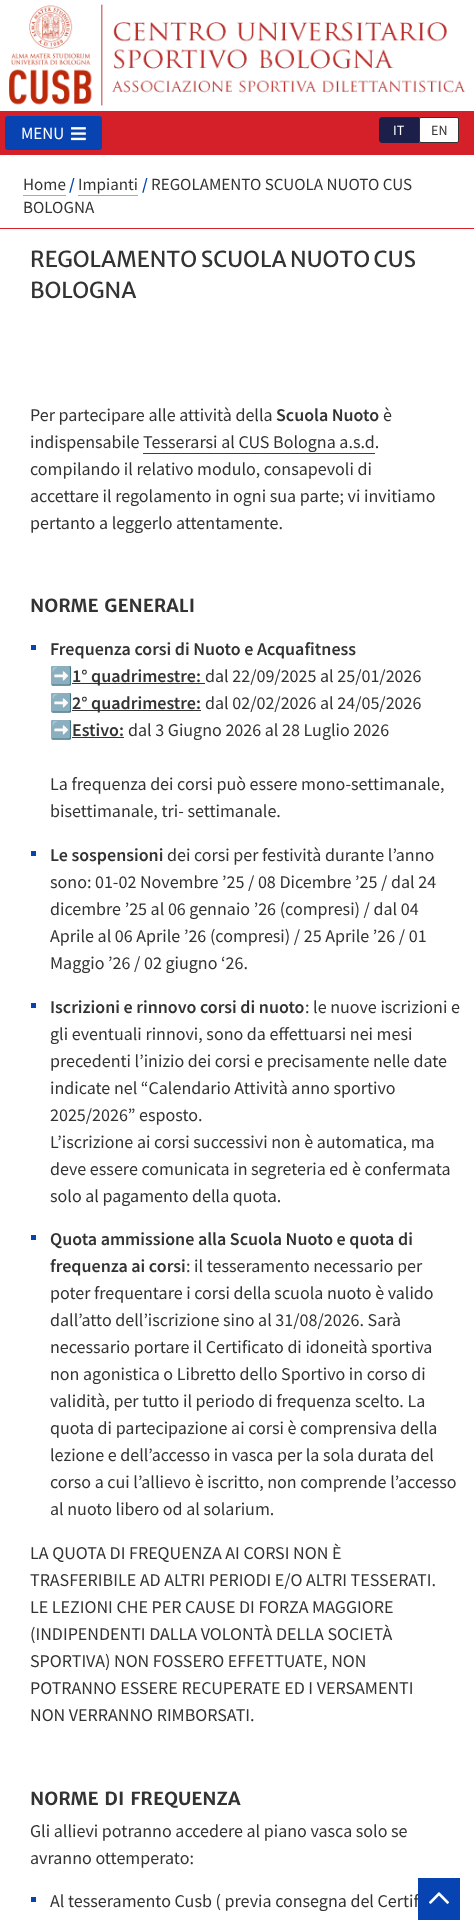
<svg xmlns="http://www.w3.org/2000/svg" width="474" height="1927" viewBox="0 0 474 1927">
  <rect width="100%" height="100%" fill="#fff"/>
  <path d="M0 111h474v44H0z" fill="#d52029"/>
  <rect x="5" y="116" width="97" height="34" rx="3" fill="#0744b1"/>
  <image x="71" y="127" width="15" height="14" href="img/1.png"/>
  <image x="9" y="4" width="457" height="102" href="img/2.png"/>
  <path d="M382 117H419V143H382C380.5 143 379 141.5 379 140V120C379 118.5 380.5 117 382 117Z" fill="#1c1f49"/>
  <rect x="419.5" y="117.5" width="39" height="25" rx="1.5" fill="#fff" stroke="#333"/>
  <path d="M0 228h474v1H0z" fill="#d52029"/>
  <path d="M23 195h43v1H23z" fill="#aaa"/>
  <path d="M78 195h60v1H78z" fill="#aaa"/>
  <path d="M143 453h232v1H143z" fill="#0744b1"/>
  <path d="M31 645h5v5H31z" fill="#0744b1"/>
  <path d="M72 683h133v1H72z" fill="#333"/>
  <path d="M72 710h129v1H72z" fill="#333"/>
  <path d="M72 737h52v1H72z" fill="#333"/>
  <path d="M31 851h5v5H31z" fill="#0744b1"/>
  <path d="M31 1003h5v5H31z" fill="#0744b1"/>
  <path d="M31 1235h5v5H31z" fill="#0744b1"/>
  <path d="M31 1897h5v5H31z" fill="#0744b1"/>
  <text x="21" y="139" font-family="Source Sans Pro" font-size="17" fill="#fff">MENU</text>
  <text x="393" y="135" font-family="Source Sans Pro" font-size="14" fill="#fff">IT</text>
  <text x="431" y="135" font-family="Source Sans Pro" font-size="14" fill="#333">EN</text>
  <text x="23" y="190" font-family="Source Sans Pro" font-size="17" fill="#333">Home</text>
  <text x="69" y="190" font-family="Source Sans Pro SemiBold" font-size="17" font-weight="600" fill="#0744b1">/</text>
  <text x="78" y="190" font-family="Source Sans Pro" font-size="17" fill="#333">Impianti</text>
  <text x="142" y="190" font-family="Source Sans Pro SemiBold" font-size="17" font-weight="600" fill="#0744b1">/</text>
  <g font-family="Source Sans Pro" font-size="17" fill="#333">
    <text x="151" y="190">REGOLAMENTO SCUOLA NUOTO CUS</text>
    <text x="23" y="213">BOLOGNA</text>
  </g>
  <g font-family="Merriweather Sans" font-size="22" fill="#333">
    <text x="30" y="267">REGOLAMENTO SCUOLA NUOTO CUS</text>
    <text x="30" y="298">BOLOGNA</text>
  </g>
  <text x="30" y="421" font-family="Source Sans Pro" font-size="18" fill="#333">Per partecipare alle attività della</text>
  <text x="276" y="421" font-family="Source Sans Pro SemiBold" font-size="18" font-weight="600" fill="#333">Scuola Nuoto</text>
  <g font-family="Source Sans Pro" font-size="18" fill="#333">
    <text x="383" y="421">è</text>
    <text x="30" y="448">indispensabile Tesserarsi al CUS Bologna a.s.d.</text>
    <text x="30" y="475">compilando il relativo modulo, consapevoli di</text>
    <text x="30" y="502">accettare il regolamento in ogni sua parte; vi invitiamo</text>
    <text x="30" y="529">pertanto a leggerlo attentamente.</text>
  </g>
  <text x="30" y="612" font-family="Merriweather Sans" font-size="18" font-weight="bold" fill="#333">NORME GENERALI</text>
  <text x="50" y="655" font-family="Source Sans Pro SemiBold" font-size="18" font-weight="600" fill="#333">Frequenza corsi di Nuoto e Acquafitness</text>
  <text x="50" y="682" font-family="Noto Color Emoji" font-size="18" font-weight="bold" fill="#333">➡️</text>
  <text x="72" y="682" font-family="Source Sans Pro SemiBold" font-size="18" font-weight="600" fill="#333">1° quadrimestre:</text>
  <text x="205" y="682" font-family="Source Sans Pro" font-size="18" fill="#333">dal 22/09/2025 al 25/01/2026</text>
  <text x="50" y="709" font-family="Noto Color Emoji" font-size="18" font-weight="bold" fill="#333">➡️</text>
  <text x="72" y="709" font-family="Source Sans Pro SemiBold" font-size="18" font-weight="600" fill="#333">2° quadrimestre:</text>
  <text x="205" y="709" font-family="Source Sans Pro" font-size="18" fill="#333">dal 02/02/2026 al 24/05/2026</text>
  <text x="50" y="736" font-family="Noto Color Emoji" font-size="18" font-weight="bold" fill="#333">➡️</text>
  <text x="72" y="736" font-family="Source Sans Pro SemiBold" font-size="18" font-weight="600" fill="#333">Estivo:</text>
  <g font-family="Source Sans Pro" font-size="18" fill="#333">
    <text x="128" y="736">dal 3 Giugno 2026 al 28 Luglio 2026</text>
    <text x="50" y="790">La frequenza dei corsi può essere mono-settimanale,</text>
    <text x="50" y="817">bisettimanale, tri- settimanale.</text>
  </g>
  <text x="50" y="861" font-family="Source Sans Pro SemiBold" font-size="18" font-weight="600" fill="#333">Le sospensioni</text>
  <g font-family="Source Sans Pro" font-size="18" fill="#333">
    <text x="167" y="861">dei corsi per festività durante l’anno</text>
    <text x="50" y="888">sono: 01-02 Novembre ’25 / 08 Dicembre ’25 / dal 24</text>
    <text x="50" y="915">dicembre ’25 al 06 gennaio ’26 (compresi) / dal 04</text>
    <text x="50" y="942">Aprile al 06 Aprile ’26 (compresi) / 25 Aprile ’26 / 01</text>
    <text x="50" y="969">Maggio ’26 / 02 giugno ‘26.</text>
  </g>
  <text x="50" y="1013" font-family="Source Sans Pro SemiBold" font-size="18" font-weight="600" fill="#333">Iscrizioni e rinnovo corsi di nuoto</text>
  <g font-family="Source Sans Pro" font-size="18" fill="#333">
    <text x="305" y="1013">: le nuove iscrizioni e</text>
    <text x="50" y="1040">gli eventuali rinnovi, sono da effettuarsi nei mesi</text>
    <text x="50" y="1067">precedenti l’inizio dei corsi e precisamente nelle date</text>
    <text x="50" y="1094">indicate nel “Calendario Attività anno sportivo</text>
    <text x="50" y="1121">2025/2026” esposto.</text>
    <text x="50" y="1148">L’iscrizione ai corsi successivi non è automatica, ma</text>
    <text x="50" y="1175">deve essere comunicata in segreteria ed è confermata</text>
    <text x="50" y="1202">solo al pagamento della quota.</text>
  </g>
  <g font-family="Source Sans Pro SemiBold" font-size="18" font-weight="600" fill="#333">
    <text x="50" y="1245">Quota ammissione alla Scuola Nuoto e quota di</text>
    <text x="50" y="1272">frequenza ai corsi</text>
  </g>
  <g font-family="Source Sans Pro" font-size="18" fill="#333">
    <text x="186" y="1272">: il tesseramento necessario per</text>
    <text x="50" y="1299">poter frequentare i corsi della scuola nuoto è valido</text>
    <text x="50" y="1326">dall’atto dell’iscrizione sino al 31/08/2026. Sarà</text>
    <text x="50" y="1353">necessario portare il Certificato di idoneità sportiva</text>
    <text x="50" y="1380">non agonistica o Libretto dello Sportivo in corso di</text>
    <text x="50" y="1407">validità, per tutto il periodo di frequenza scelto. La</text>
    <text x="50" y="1434">quota di partecipazione ai corsi è comprensiva della</text>
    <text x="50" y="1461">lezione e dell’accesso in vasca per la sola durata del</text>
    <text x="50" y="1488">corso a cui l’allievo è iscritto, non comprende l’accesso</text>
    <text x="50" y="1515">al nuoto libero od al solarium.</text>
    <text x="30" y="1559">LA QUOTA DI FREQUENZA AI CORSI NON È</text>
    <text x="30" y="1586">TRASFERIBILE AD ALTRI PERIODI E/O ALTRI TESSERATI.</text>
    <text x="30" y="1613">LE LEZIONI CHE PER CAUSE DI FORZA MAGGIORE</text>
    <text x="30" y="1640">(INDIPENDENTI DALLA VOLONTÀ DELLA SOCIETÀ</text>
    <text x="30" y="1667">SPORTIVA) NON FOSSERO EFFETTUATE, NON</text>
    <text x="30" y="1694">POTRANNO ESSERE RECUPERATE ED I VERSAMENTI</text>
    <text x="30" y="1721">NON VERRANNO RIMBORSATI.</text>
  </g>
  <text x="30" y="1805" font-family="Merriweather Sans" font-size="18" font-weight="bold" fill="#333">NORME DI FREQUENZA</text>
  <g font-family="Source Sans Pro" font-size="18" fill="#333">
    <text x="30" y="1837">Gli allievi potranno accedere al piano vasca solo se</text>
    <text x="30" y="1864">avranno ottemperato:</text>
    <text x="50" y="1907">Al tesseramento Cusb ( previa consegna del Certif</text>
  </g>
  <path d="M418 1878h42v42H418z" fill="#0744b1"/>
  <image x="429" y="1892" width="20" height="12" href="img/3.png"/>
</svg>
